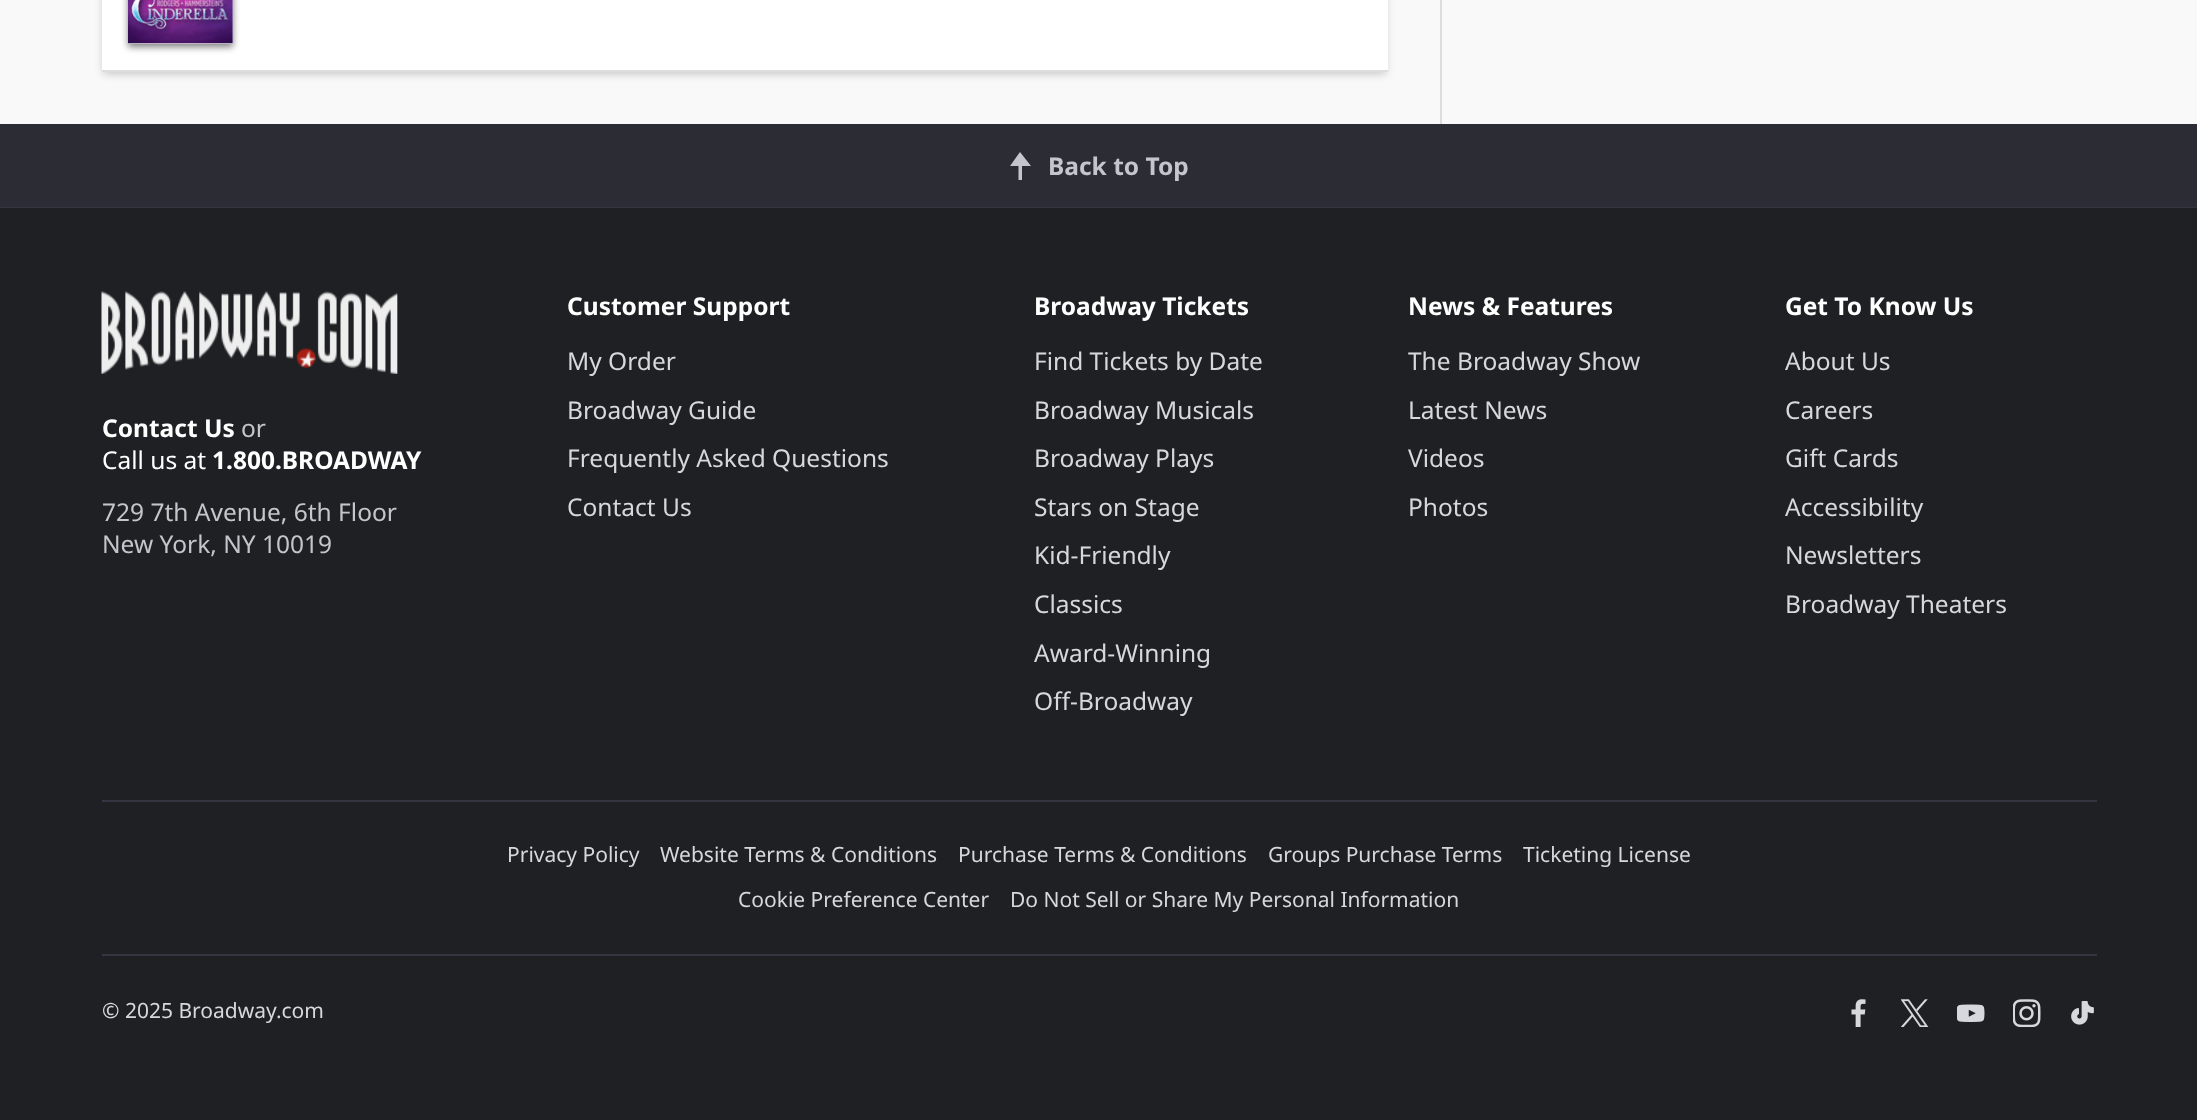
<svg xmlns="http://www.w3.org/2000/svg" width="2197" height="1120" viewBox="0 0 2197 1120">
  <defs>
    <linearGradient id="g1" gradientUnits="userSpaceOnUse" x1="180" y1="-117" x2="180" y2="44"><stop offset="0" stop-color="#f9f9f9"/><stop offset="1" stop-color="#eee"/></linearGradient>
  </defs>
  <rect width="100%" height="100%" fill="#f9f9f9"/>
  <path d="M103 -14h1283v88H103z" fill="#00000033" filter="blur(4.5px)"/>
  <path d="M102 0h1286v70H102z" fill="#fff"/>
  <path d="M102 70h1286v2H102z" fill="#ddd"/>
  <path d="M128 -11h105v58H128z" fill="#00000080" filter="blur(3.5px)"/>
  <path d="M128 0h105v44H128z" fill="url(#g1)"/>
  <image x="128" y="0" width="105" height="44" href="img/1.png"/>
  <path d="M1440 0h2v124H1440z" fill="#ddd"/>
  <path d="M0 124h2197v83H0z" fill="#2b2c34"/>
  <path d="M0 207h2197v1H0z" fill="#343540"/>
  <path d="M1020 152L1031 166H1022V180H1018.5V166H1010Z" fill="#c5c6cd" fill-rule="evenodd"/>
  <path d="M0 208h2197v912H0z" fill="#1f2023"/>
  <image x="101" y="291" width="297" height="83" href="img/2.png"/>
  <path d="M102 800h1995v2H102z" fill="#343540"/>
  <path d="M102 954h1995v2H102z" fill="#343540"/>
  <image x="1851" y="999" width="15" height="28" href="img/3.png"/>
  <image x="1901" y="999" width="28" height="28" href="img/4.png"/>
  <image x="1957" y="1004" width="28" height="18" href="img/5.png"/>
  <image x="2013" y="999" width="28" height="28" href="img/6.png"/>
  <image x="2071" y="1001" width="23" height="24" href="img/7.png"/>
  <text x="1048" y="175" font-family="Noto Sans" font-size="24.5" font-weight="bold" fill="#c5c6cd">Back to Top</text>
  <text x="102" y="437" font-family="Noto Sans" font-size="24.5" font-weight="bold" fill="#fff">Contact Us</text>
  <text x="241" y="437" font-family="Noto Sans" font-size="24.5" fill="#c5c6cd">or</text>
  <text x="102" y="469" font-family="Noto Sans" font-size="24.5" fill="#fff">Call us at</text>
  <text x="212" y="469" font-family="Noto Sans" font-size="24.5" font-weight="bold" fill="#fff">1.800.BROADWAY</text>
  <g font-family="Noto Sans" font-size="24.5" fill="#c5c6cd">
    <text x="102" y="521">729 7th Avenue, 6th Floor</text>
    <text x="102" y="553">New York, NY 10019</text>
  </g>
  <text x="567" y="315" font-family="Noto Sans" font-size="24.5" font-weight="bold" fill="#fff">Customer Support</text>
  <g font-family="Noto Sans" font-size="24.5" fill="#d7d8dd">
    <text x="567" y="370">My Order</text>
    <text x="567" y="419">Broadway Guide</text>
    <text x="567" y="467">Frequently Asked Questions</text>
    <text x="567" y="516">Contact Us</text>
  </g>
  <text x="1034" y="315" font-family="Noto Sans" font-size="24.5" font-weight="bold" fill="#fff">Broadway Tickets</text>
  <g font-family="Noto Sans" font-size="24.5" fill="#d7d8dd">
    <text x="1034" y="370">Find Tickets by Date</text>
    <text x="1034" y="419">Broadway Musicals</text>
    <text x="1034" y="467">Broadway Plays</text>
    <text x="1034" y="516">Stars on Stage</text>
    <text x="1034" y="564">Kid-Friendly</text>
    <text x="1034" y="613">Classics</text>
    <text x="1034" y="662">Award-Winning</text>
    <text x="1034" y="710">Off-Broadway</text>
  </g>
  <text x="1408" y="315" font-family="Noto Sans" font-size="24.5" font-weight="bold" fill="#fff">News &amp; Features</text>
  <g font-family="Noto Sans" font-size="24.5" fill="#d7d8dd">
    <text x="1408" y="370">The Broadway Show</text>
    <text x="1408" y="419">Latest News</text>
    <text x="1408" y="467">Videos</text>
    <text x="1408" y="516">Photos</text>
  </g>
  <text x="1785" y="315" font-family="Noto Sans" font-size="24.5" font-weight="bold" fill="#fff">Get To Know Us</text>
  <g font-family="Noto Sans" font-size="24.5" fill="#d7d8dd">
    <text x="1785" y="370">About Us</text>
    <text x="1785" y="419">Careers</text>
    <text x="1785" y="467">Gift Cards</text>
    <text x="1785" y="516">Accessibility</text>
    <text x="1785" y="564">Newsletters</text>
    <text x="1785" y="613">Broadway Theaters</text>
  </g>
  <g font-family="Noto Sans" font-size="21" fill="#d7d8dd">
    <text x="507" y="862">Privacy Policy</text>
    <text x="660" y="862">Website Terms &amp; Conditions</text>
    <text x="958" y="862">Purchase Terms &amp; Conditions</text>
    <text x="1268" y="862">Groups Purchase Terms</text>
    <text x="1523" y="862">Ticketing License</text>
    <text x="738" y="907">Cookie Preference Center</text>
    <text x="1010" y="907">Do Not Sell or Share My Personal Information</text>
    <text x="102" y="1018">© 2025 Broadway.com</text>
  </g>
</svg>
